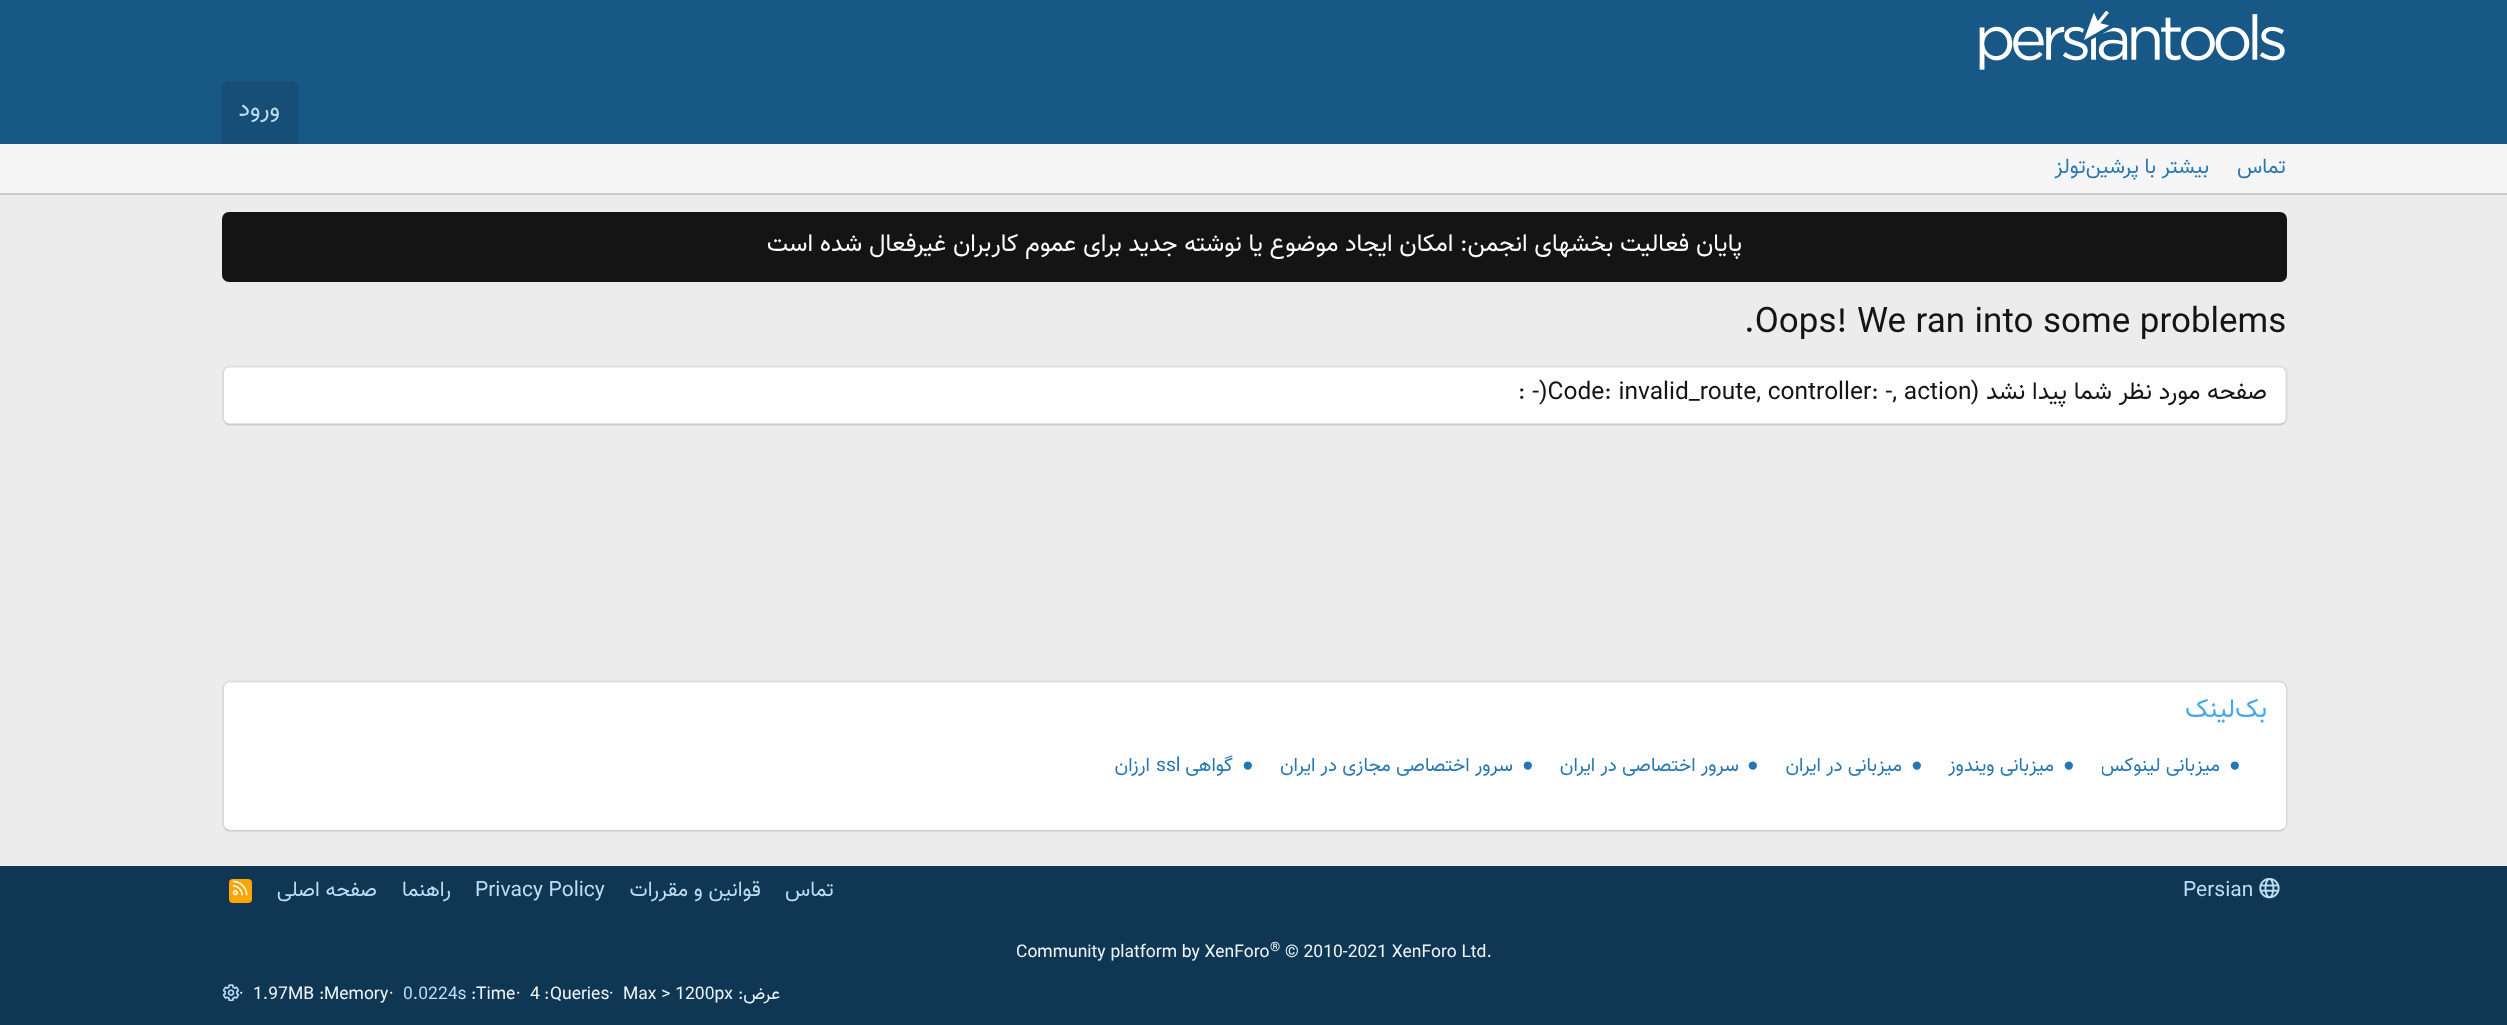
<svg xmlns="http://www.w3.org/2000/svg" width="2507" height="1025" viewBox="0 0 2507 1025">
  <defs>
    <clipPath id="clip1"><path d="M2102 751h166v35H2102z"/></clipPath>
  </defs>
  <rect width="100%" height="100%" fill="#ececec"/>
  <path d="M0 0h2507v144H0z" fill="#185886"/>
  <image x="1979" y="11" width="306" height="59" href="img/1.png"/>
  <path d="M229 81H291C295 81 298 84 298 88V144H222V88C222 84 225 81 229 81Z" fill="#174e75"/>
  <path d="M0 144h2507v49H0z" fill="#f5f5f5"/>
  <path d="M0 193h2507v2H0z" fill="#cbcbcb"/>
  <rect x="222" y="212" width="2065" height="70" rx="7" fill="#141414"/>
  <rect x="222" y="366" width="2065" height="59" rx="7" fill="#fefefe"/>
  <path d="M225 368.5C226 367.5 227.5 366.5 229 366.5H2280C2282 366.5 2283.5 367.5 2284.5 368.5" fill="none" stroke="#dfdfdf" stroke-width="1.8"/>
  <path d="M2284.5 368.5C2285.5 369.5 2286.5 371 2286.5 373V418C2286.5 420 2285.5 421.5 2284.5 422.5" fill="none" stroke="#d8d8d8" stroke-width="1.8"/>
  <path d="M2284.5 422.5C2283.5 423.5 2282 424.5 2280 424.5H229C227.5 424.5 226 423.5 225 422.5" fill="none" stroke="#cbcbcb" stroke-width="1.8"/>
  <path d="M225 422.5C224 421.5 223 420 223 418V373C223 371 224 369.5 225 368.5" fill="none" stroke="#d8d8d8" stroke-width="1.8"/>
  <rect x="222" y="681" width="2065" height="150" rx="7" fill="#fefefe"/>
  <path d="M225 683.5C226 682.5 227.5 681.5 229 681.5H2280C2282 681.5 2283.5 682.5 2284.5 683.5" fill="none" stroke="#dfdfdf" stroke-width="1.8"/>
  <path d="M2284.5 683.5C2285.5 684.5 2286.5 686 2286.5 688V824C2286.5 826 2285.5 827.5 2284.5 828.5" fill="none" stroke="#d8d8d8" stroke-width="1.8"/>
  <path d="M2284.5 828.5C2283.5 829.5 2282 830.5 2280 830.5H229C227.5 830.5 226 829.5 225 828.5" fill="none" stroke="#cbcbcb" stroke-width="1.8"/>
  <path d="M225 828.5C224 827.5 223 826 223 824V688C223 686 224 684.5 225 683.5" fill="none" stroke="#d8d8d8" stroke-width="1.8"/>
  <rect x="224" y="683" width="2062" height="147" rx="7" fill="#fefefe"/>
  <path d="M0 866h2507v159H0z" fill="#0f3652"/>
  <image x="2259" y="878" width="21" height="21" href="img/2.png"/>
  <rect x="229" y="879" width="23" height="24" rx="4" fill="#ffa500"/>
  <image x="232" y="880" width="16" height="16" href="img/3.png"/>
  <image x="222" y="984" width="18" height="18" href="img/4.png"/>
  <text x="280" y="116" font-family="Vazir" font-size="24.5" direction="rtl" fill="#bcdef5">ورود</text>
  <g font-family="Vazir" font-size="21" direction="rtl" fill="#2577b1">
    <text x="2286" y="173">تماس</text>
    <text x="2209" y="173">بیشتر با پرشین‌تولز</text>
  </g>
  <text x="1742" y="251" font-family="Vazir" font-size="24.5" direction="rtl" fill="#fefefe">پایان فعالیت بخشهای انجمن: امکان ایجاد موضوع یا نوشته جدید برای عموم کاربران غیرفعال شده است</text>
  <text x="1744" y="332" font-family="Vazir" font-size="35" fill="#141414">.Oops! We ran into some problems</text>
  <text x="2267" y="399" font-family="Vazir" font-size="24.5" direction="rtl" fill="#141414">صفحه مورد نظر شما پیدا نشد (</text>
  <text x="1518" y="399" font-family="Vazir" font-size="24.5" fill="#141414">: -)Code: invalid_route, controller: -, action</text>
  <text x="2267" y="717" font-family="Vazir" font-size="26" direction="rtl" fill="#47a7eb">بک‌لینک</text>
  <text x="2229" y="771" font-family="Liberation Sans" font-size="19.25" fill="#2577b1">●</text>
  <g clip-path="url(#clip1)">
    <text x="2220" y="771" font-family="Vazir" font-size="19.25" direction="rtl" fill="#2577b1">میزبانی لینوکس</text>
  </g>
  <text x="2063" y="771" font-family="Liberation Sans" font-size="19.25" fill="#2577b1">●</text>
  <text x="2054" y="771" font-family="Vazir" font-size="19.25" direction="rtl" fill="#2577b1">میزبانی ویندوز</text>
  <text x="1911" y="771" font-family="Liberation Sans" font-size="19.25" fill="#2577b1">●</text>
  <text x="1902" y="771" font-family="Vazir" font-size="19.25" direction="rtl" fill="#2577b1">میزبانی در ایران</text>
  <text x="1747" y="771" font-family="Liberation Sans" font-size="19.25" fill="#2577b1">●</text>
  <text x="1739" y="771" font-family="Vazir" font-size="19.25" direction="rtl" fill="#2577b1">سرور اختصاصی در ایران</text>
  <text x="1522" y="771" font-family="Liberation Sans" font-size="19.25" fill="#2577b1">●</text>
  <text x="1513" y="771" font-family="Vazir" font-size="19.25" direction="rtl" fill="#2577b1">سرور اختصاصی مجازی در ایران</text>
  <text x="1242" y="771" font-family="Liberation Sans" font-size="19.25" fill="#2577b1">●</text>
  <text x="1233" y="771" font-family="Vazir" font-size="19.25" direction="rtl" fill="#2577b1">گواهی</text>
  <text x="1156" y="771" font-family="Vazir" font-size="19.25" fill="#2577b1">ssl</text>
  <text x="1150" y="771" font-family="Vazir" font-size="19.25" direction="rtl" fill="#2577b1">ارزان</text>
  <text x="2183" y="896" font-family="Vazir" font-size="21" fill="#bcdef5">Persian</text>
  <g font-family="Vazir" font-size="21" direction="rtl" fill="#bcdef5">
    <text x="834" y="896">تماس</text>
    <text x="761" y="896">قوانین و مقررات</text>
  </g>
  <text x="475" y="896" font-family="Vazir" font-size="21" fill="#bcdef5">Privacy Policy</text>
  <g font-family="Vazir" font-size="21" direction="rtl" fill="#bcdef5">
    <text x="451" y="896">راهنما</text>
    <text x="377" y="896">صفحه اصلی</text>
  </g>
  <text x="1285" y="957" font-family="Vazir" font-size="17.5" fill="#edf6fd">© 2010-2021 XenForo Ltd.</text>
  <text x="1270" y="951" font-family="Vazir" font-size="13" fill="#edf6fd">®</text>
  <text x="1016" y="957" font-family="Vazir" font-size="17.5" fill="#edf6fd">Community platform by XenForo</text>
  <text x="780" y="999" font-family="Vazir" font-size="17.5" direction="rtl" fill="#edf6fd">عرض</text>
  <g font-family="Vazir" font-size="17.5" fill="#edf6fd">
    <text x="738" y="999">:</text>
    <text x="623" y="999">Max &gt; 1200px</text>
    <text x="609" y="999">·</text>
    <text x="550" y="999">Queries</text>
    <text x="544" y="999">:</text>
    <text x="530" y="999">4</text>
    <text x="516" y="999">·</text>
    <text x="476" y="999">Time</text>
    <text x="471" y="999">:</text>
  </g>
  <text x="403" y="999" font-family="Vazir" font-size="17.5" fill="#bcdef5">0.0224s</text>
  <g font-family="Vazir" font-size="17.5" fill="#edf6fd">
    <text x="389" y="999">·</text>
    <text x="324" y="999">Memory</text>
    <text x="319" y="999">:</text>
    <text x="253" y="999">1.97MB</text>
    <text x="239" y="999">·</text>
  </g>
</svg>
